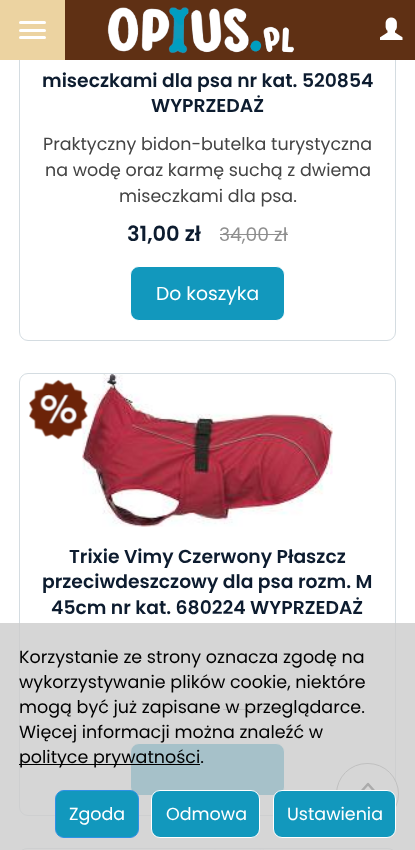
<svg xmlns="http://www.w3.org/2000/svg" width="415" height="850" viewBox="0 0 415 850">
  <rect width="100%" height="100%" fill="#fff"/>
  <rect x="19.5" y="-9.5" width="376" height="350" rx="8.5" fill="none" stroke="#d4dce1"/>
  <path d="M65 0h350v60H65z" fill="#5f3014"/>
  <path d="M0 0h65v60H0z" fill="#ecd3a1"/>
  <rect x="19" y="21" width="27" height="3" rx="1.5" fill="#fff"/>
  <rect x="19" y="29" width="27" height="3" rx="1.5" fill="#fff"/>
  <rect x="19" y="36" width="27" height="3" rx="1.5" fill="#fff"/>
  <image x="107" y="7" width="187" height="47" href="img/1.png"/>
  <image x="380" y="17" width="23" height="23" href="img/2.png"/>
  <path d="M220 234h68v1H220z" fill="#8f8f8f"/>
  <rect x="130.5" y="266.5" width="154" height="54" rx="8.5" fill="#1298bd" stroke="#fff"/>
  <rect x="19.5" y="373.5" width="376" height="442" rx="8.5" fill="none" stroke="#d4dce1"/>
  <image x="82" y="374" width="251" height="153" href="img/4.png"/>
  <image x="29" y="379" width="59" height="61" href="img/3.png"/>
  <path d="M223 709h68v1H223z" fill="#8f8f8f"/>
  <rect x="130.5" y="743.5" width="154" height="52" rx="8.5" fill="#1298bd" stroke="#fff"/>
  <rect x="19.5" y="848.5" width="376" height="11" rx="8.5" fill="none" stroke="#d4dce1"/>
  <image x="214" y="849" width="50" height="1" href="img/5.png"/>
  <rect x="336.5" y="763.5" width="62" height="61" rx="30.5" fill="#fff" stroke="#8f8f8f"/>
  <path d="M356 797.5L368 784L380 797.5" fill="none" stroke="#292929" stroke-width="2.5" stroke-linecap="round" stroke-linejoin="round"/>
  <path d="M0 623h415v227H0z" fill="#cccccccc"/>
  <path d="M19 764h181v1H19z" fill="#000"/>
  <rect x="55.5" y="790.5" width="83" height="47" rx="8.5" fill="#1298bd" stroke="#2e91e6"/>
  <rect x="151.5" y="790.5" width="108" height="47" rx="8.5" fill="#1298bd" stroke="#fff"/>
  <rect x="273.5" y="790.5" width="122" height="47" rx="8.5" fill="#1298bd" stroke="#fff"/>
  <g font-family="Poppins" font-size="18.75" font-weight="600" fill="#0d1c2f">
    <text x="42" y="87">miseczkami dla psa nr kat. 520854</text>
    <text x="151" y="112">WYPRZEDAŻ</text>
  </g>
  <g font-family="Poppins" font-size="17.5" fill="#444">
    <text x="43" y="150">Praktyczny bidon-butelka turystyczna</text>
    <text x="45" y="176">na wodę oraz karmę suchą z dwiema</text>
    <text x="119" y="202">miseczkami dla psa.</text>
  </g>
  <text x="127" y="241" font-family="Poppins" font-size="21" font-weight="600" fill="#0d1c2f">31,00 zł</text>
  <text x="219" y="241" font-family="Poppins" font-size="18.75" fill="#8f8f8f">34,00 zł</text>
  <text x="156" y="300" font-family="Poppins" font-size="18.75" fill="#fff">Do koszyka</text>
  <g font-family="Poppins" font-size="18.75" font-weight="600" fill="#0d1c2f">
    <text x="69" y="563">Trixie Vimy Czerwony Płaszcz</text>
    <text x="42" y="588">przeciwdeszczowy dla psa rozm. M</text>
    <text x="51" y="614">45cm nr kat. 680224 WYPRZEDAŻ</text>
  </g>
  <g font-family="Poppins" font-size="17.5" fill="#000">
    <text x="19" y="663">Korzystanie ze strony oznacza zgodę na</text>
    <text x="19" y="688">wykorzystywanie plików cookie, niektóre</text>
    <text x="19" y="713">mogą być już zapisane w przeglądarce.</text>
    <text x="19" y="738">Więcej informacji można znaleźć w</text>
    <text x="19" y="763">polityce prywatności.</text>
  </g>
  <g font-family="Poppins" font-size="17.5" fill="#fff">
    <text x="69" y="820">Zgoda</text>
    <text x="166" y="820">Odmowa</text>
    <text x="287" y="820">Ustawienia</text>
  </g>
</svg>
